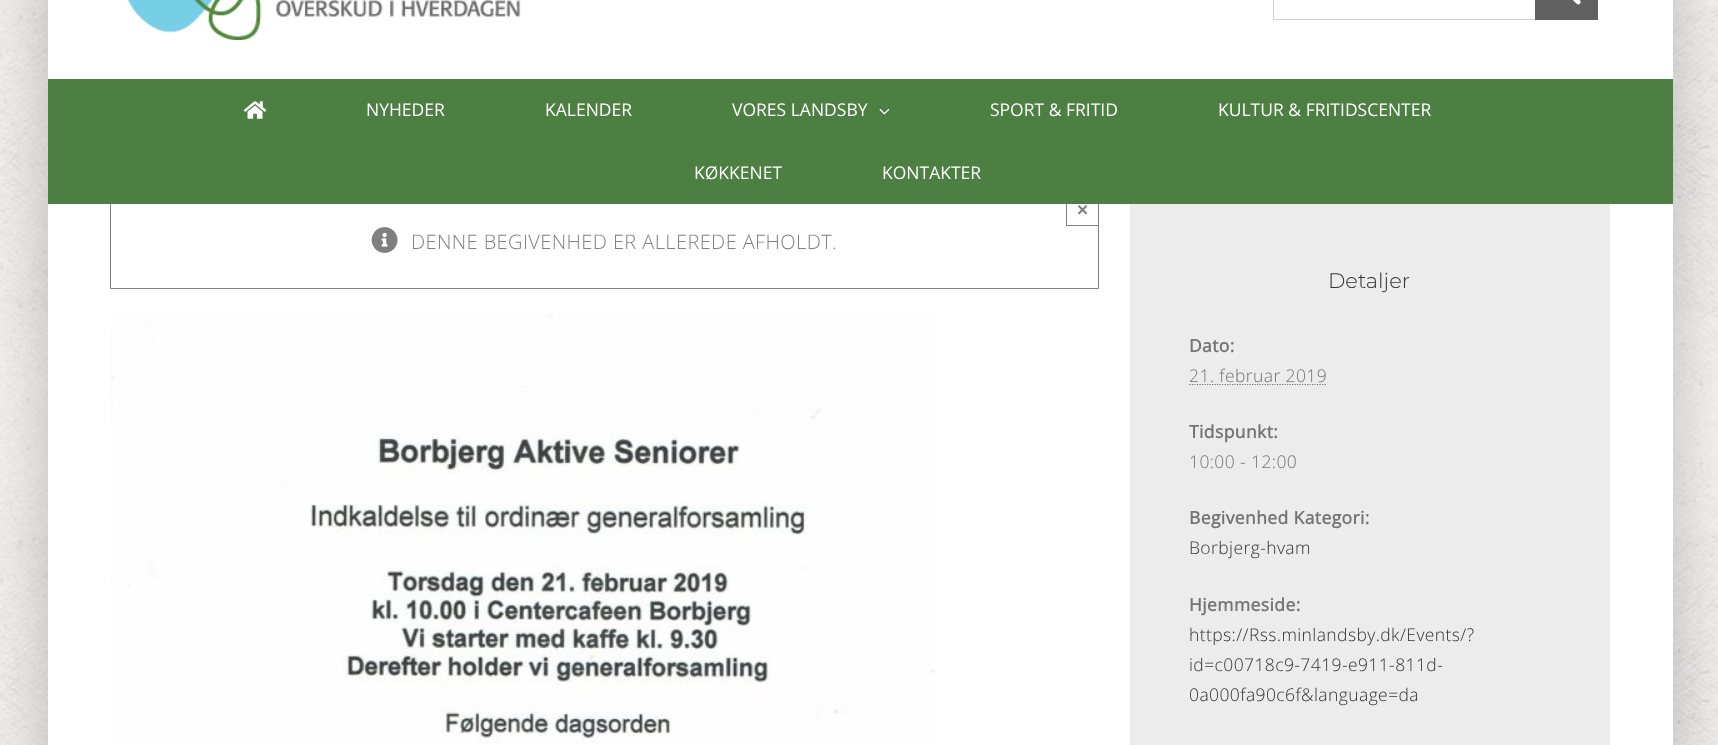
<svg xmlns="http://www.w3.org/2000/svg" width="1718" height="745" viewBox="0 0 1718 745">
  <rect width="100%" height="100%" fill="#fff"/>
  <image x="0" y="0" width="1718" height="745" href="img/1.png"/>
  <path d="M46 -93h1628v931H46z" fill="#00000038" filter="blur(31px)"/>
  <path d="M48 0h1625v79H48z" fill="#fff"/>
  <image x="127" y="0" width="394" height="40" href="img/2.png"/>
  <path d="M1273 19h262v1H1273z" fill="#d2d2d2"/>
  <path d="M1273 0h1v20H1273z" fill="#d2d2d2"/>
  <path d="M1535 0h63v20H1535z" fill="#606060"/>
  <image x="1573" y="0" width="8" height="5" href="img/3.png"/>
  <path d="M48 204h1625v541H48z" fill="#fff"/>
  <path d="M110.5 194.5h988v94H110.5z" fill="none" stroke="#808080"/>
  <path d="M48 79h1625v125H48z" fill="#4c7f41"/>
  <image x="243" y="101" width="24" height="18" href="img/4.png"/>
  <image x="879" y="108" width="11" height="7" href="img/5.png"/>
  <path d="M1066 225h33v1H1066z" fill="#808080"/>
  <path d="M1066 204h1v22H1066z" fill="#808080"/>
  <image x="371" y="227" width="27" height="26" href="img/6.png"/>
  <image x="110" y="314" width="827" height="430" href="img/7.png"/>
  <path d="M1130 204h480v541H1130z" fill="#ececec"/>
  <path d="M1190 404h360v1H1190z" fill="#e8e8e8"/>
  <path d="M1189.5 384.5H1327" fill="none" stroke="#747474" stroke-width="1.2" stroke-dasharray="1.25 1.25"/>
  <path d="M1190 490h360v1H1190z" fill="#e8e8e8"/>
  <path d="M1190 576h360v1H1190z" fill="#e8e8e8"/>
  <path d="M1190 723h360v1H1190z" fill="#e8e8e8"/>
  <g font-family="Open Sans" font-size="17.5" fill="#fff">
    <text x="366" y="116">NYHEDER</text>
    <text x="545" y="116">KALENDER</text>
    <text x="732" y="116">VORES LANDSBY</text>
    <text x="990" y="116">SPORT &amp; FRITID</text>
    <text x="1218" y="116">KULTUR &amp; FRITIDSCENTER</text>
    <text x="694" y="179">KØKKENET</text>
    <text x="882" y="179">KONTAKTER</text>
  </g>
  <text x="1077" y="216" font-family="Liberation Sans" font-size="19" font-weight="bold" fill="#808080">×</text>
  <text x="411" y="249" font-family="Open Sans" font-size="20" font-weight="300" letter-spacing="0.4" fill="#808080">DENNE BEGIVENHED ER ALLEREDE AFHOLDT.</text>
  <text x="1328" y="288" font-family="Montserrat" font-size="21" font-weight="300" fill="#333">Detaljer</text>
  <text x="1189" y="352" font-family="Open Sans" font-size="17.5" font-weight="bold" letter-spacing="0.4" fill="#747474">Dato:</text>
  <text x="1189" y="382" font-family="Open Sans" font-size="17.5" font-weight="300" letter-spacing="0.4" fill="#747474">21. februar 2019</text>
  <text x="1189" y="438" font-family="Open Sans" font-size="17.5" font-weight="bold" letter-spacing="0.4" fill="#747474">Tidspunkt:</text>
  <text x="1189" y="468" font-family="Open Sans" font-size="17.5" font-weight="300" letter-spacing="0.4" fill="#747474">10:00 - 12:00</text>
  <text x="1189" y="524" font-family="Open Sans" font-size="17.5" font-weight="bold" letter-spacing="0.4" fill="#747474">Begivenhed Kategori:</text>
  <text x="1189" y="554" font-family="Open Sans" font-size="17.5" font-weight="300" letter-spacing="0.4" fill="#333">Borbjerg-hvam</text>
  <text x="1189" y="611" font-family="Open Sans" font-size="17.5" font-weight="bold" letter-spacing="0.4" fill="#747474">Hjemmeside:</text>
  <g font-family="Open Sans" font-size="17.5" font-weight="300" letter-spacing="0.4" fill="#333">
    <text x="1189" y="641">https://Rss.minlandsby.dk/Events/?</text>
    <text x="1189" y="671">id=c00718c9-7419-e911-811d-</text>
    <text x="1189" y="701">0a000fa90c6f&amp;language=da</text>
  </g>
</svg>
